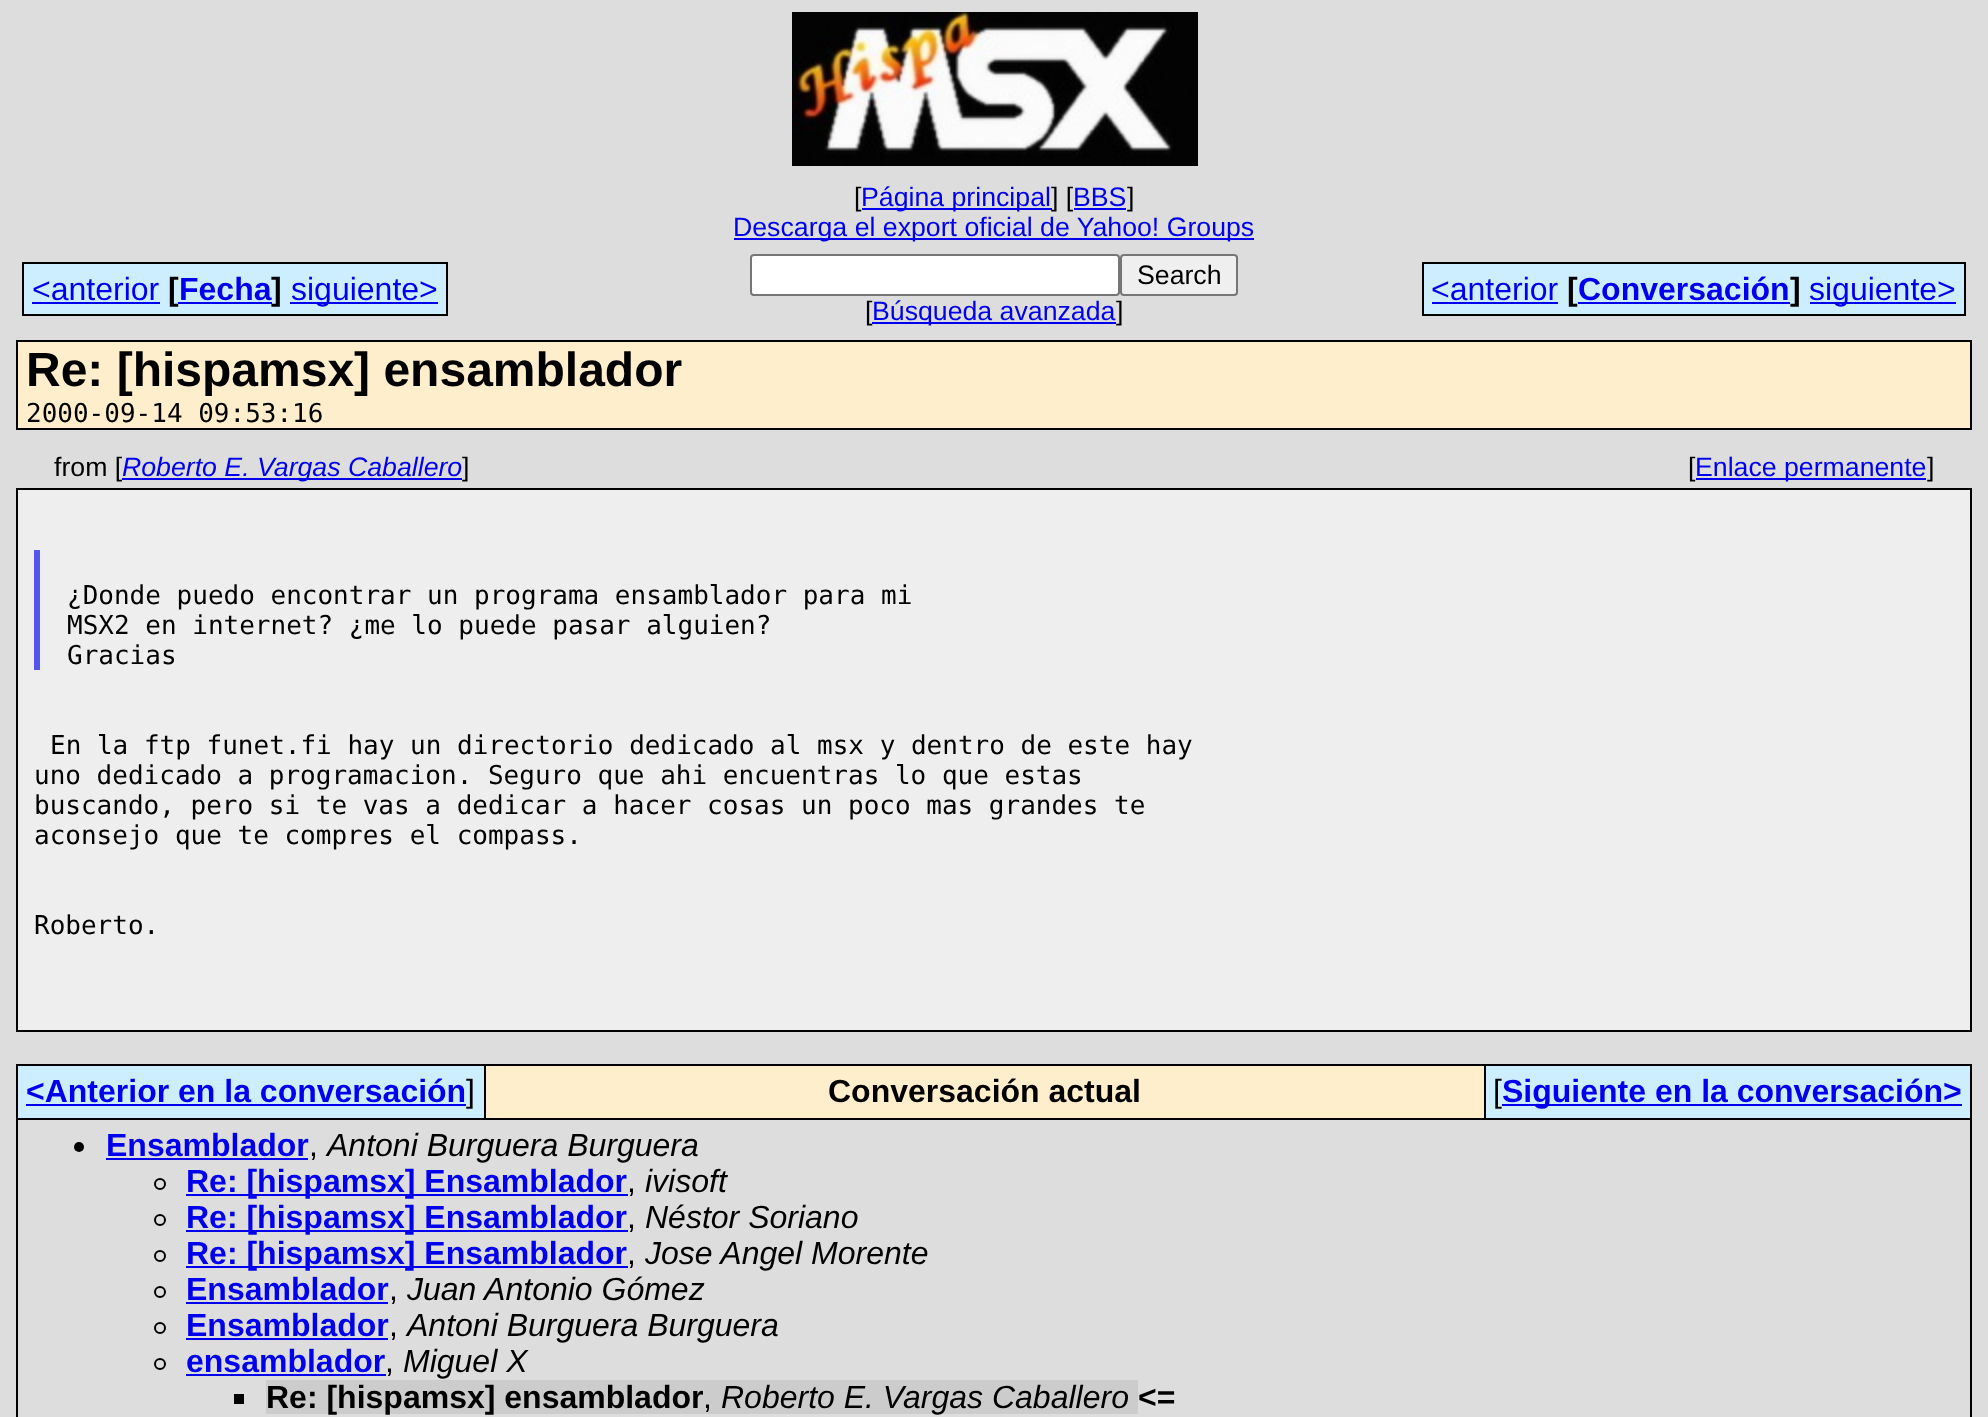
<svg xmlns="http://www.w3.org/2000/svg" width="1988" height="1417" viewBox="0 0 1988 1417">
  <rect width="100%" height="100%" fill="#ddd"/>
  <image x="792" y="12" width="406" height="154" href="img/1.png"/>
  <path d="M862 208h190v2H862z" fill="#00e"/>
  <path d="M1074 208h52v2H1074z" fill="#00e"/>
  <path d="M734 238h520v2H734z" fill="#00e"/>
  <path d="M24 264h136v50H24z" fill="#cef"/>
  <path d="M22 262h138v2H22z" fill="#000"/>
  <path d="M22 314h138v2H22z" fill="#000"/>
  <path d="M22 262h2v54H22z" fill="#000"/>
  <path d="M160 262h8v54H160z" fill="#cef"/>
  <path d="M32 302h128v2H32z" fill="#00e"/>
  <path d="M160 314h122v2H160z" fill="#000"/>
  <path d="M160 262h122v2H160z" fill="#000"/>
  <path d="M168 264h114v50H168z" fill="#cef"/>
  <path d="M282 262h8v54H282z" fill="#cef"/>
  <path d="M282 314h8v2H282z" fill="#000"/>
  <path d="M282 262h166v2H282z" fill="#000"/>
  <path d="M290 264h156v50H290z" fill="#cef"/>
  <path d="M446 262h2v54H446z" fill="#000"/>
  <path d="M290 314h158v2H290z" fill="#000"/>
  <path d="M290 302h148v2H290z" fill="#00e"/>
  <rect x="751" y="255" width="368" height="40" rx="3" fill="#fff" stroke="#767676" stroke-width="2"/>
  <rect x="1121" y="255" width="116" height="40" rx="3" fill="#efefef" stroke="#767676" stroke-width="2"/>
  <path d="M1424 264h540v50H1424z" fill="#cef"/>
  <path d="M1422 262h544v2H1422z" fill="#000"/>
  <path d="M1422 314h388v2H1422z" fill="#000"/>
  <path d="M1422 262h2v54H1422z" fill="#000"/>
  <path d="M1432 302h126v2H1432z" fill="#00e"/>
  <path d="M1578 302h212v2H1578z" fill="#00e"/>
  <path d="M1964 262h2v54H1964z" fill="#000"/>
  <path d="M1810 314h156v2H1810z" fill="#000"/>
  <path d="M1810 302h146v2H1810z" fill="#00e"/>
  <path d="M17 341h1954v88H17z" fill="#fec" stroke="#000" stroke-width="2"/>
  <path d="M122 478h340v2H122z" fill="#00e"/>
  <path d="M1696 478h230v2H1696z" fill="#00e"/>
  <path d="M17 489h1954v542H17z" fill="#eee" stroke="#000" stroke-width="2"/>
  <path d="M34 550h6v120H34z" fill="#55e"/>
  <path d="M16 1064h1956v353H16z" fill="#000"/>
  <path d="M18 1066h466v52H18z" fill="#cef"/>
  <path d="M26 1104h440v2H26z" fill="#00e"/>
  <path d="M486 1066h998v52H486z" fill="#fec"/>
  <path d="M1486 1066h484v52H1486z" fill="#cef"/>
  <path d="M18 1120h1952v297H18z" fill="#ddd"/>
  <circle cx="79" cy="1147" r="5" fill="#000"/>
  <path d="M106 1158h202v2H106z" fill="#00e"/>
  <circle cx="160" cy="1184" r="5" fill="none" stroke="#000" stroke-width="2"/>
  <path d="M186 1194h442v2H186z" fill="#00e"/>
  <circle cx="160" cy="1220" r="5" fill="none" stroke="#000" stroke-width="2"/>
  <path d="M186 1230h442v2H186z" fill="#00e"/>
  <circle cx="160" cy="1256" r="5" fill="none" stroke="#000" stroke-width="2"/>
  <path d="M186 1266h442v2H186z" fill="#00e"/>
  <circle cx="160" cy="1292" r="5" fill="none" stroke="#000" stroke-width="2"/>
  <path d="M186 1302h202v2H186z" fill="#00e"/>
  <circle cx="160" cy="1328" r="5" fill="none" stroke="#000" stroke-width="2"/>
  <path d="M186 1338h202v2H186z" fill="#00e"/>
  <circle cx="160" cy="1364" r="5" fill="none" stroke="#000" stroke-width="2"/>
  <path d="M186 1374h200v2H186z" fill="#00e"/>
  <path d="M234 1394h10v10H234z" fill="#000"/>
  <path d="M266 1380h872v34H266z" fill="#ccc"/>
  <text x="854" y="206" font-family="Liberation Sans" font-size="26.7" fill="#000">[</text>
  <text x="861" y="206" font-family="Liberation Sans" font-size="26.7" fill="#00e">Página principal</text>
  <text x="1051" y="206" font-family="Liberation Sans" font-size="26.7" fill="#000">] [</text>
  <text x="1073" y="206" font-family="Liberation Sans" font-size="26.7" fill="#00e">BBS</text>
  <text x="1127" y="206" font-family="Liberation Sans" font-size="26.7" fill="#000">]</text>
  <text x="733" y="236" font-family="Liberation Sans" font-size="26.7" fill="#00e">Descarga el export oficial de Yahoo! Groups</text>
  <text x="32" y="300" font-family="Liberation Sans" font-size="32" fill="#00e">&lt;anterior</text>
  <text x="168" y="300" font-family="Liberation Sans" font-size="32" font-weight="bold" fill="#000">[</text>
  <path d="M178 302h94v2H178z" fill="#00e"/>
  <text x="179" y="300" font-family="Liberation Sans" font-size="32" font-weight="bold" fill="#00e">Fecha</text>
  <text x="271" y="300" font-family="Liberation Sans" font-size="32" font-weight="bold" fill="#000">]</text>
  <text x="291" y="300" font-family="Liberation Sans" font-size="32" fill="#00e">siguiente&gt;</text>
  <g font-family="Liberation Sans" font-size="26.7" fill="#000">
    <text x="1137" y="284">Search</text>
    <text x="865" y="320">[</text>
  </g>
  <path d="M872 322h244v2H872z" fill="#00e"/>
  <text x="872" y="320" font-family="Liberation Sans" font-size="26.7" fill="#00e">Búsqueda avanzada</text>
  <text x="1116" y="320" font-family="Liberation Sans" font-size="26.7" fill="#000">]</text>
  <text x="1431" y="300" font-family="Liberation Sans" font-size="32" fill="#00e">&lt;anterior</text>
  <text x="1567" y="300" font-family="Liberation Sans" font-size="32" font-weight="bold" fill="#000">[</text>
  <text x="1578" y="300" font-family="Liberation Sans" font-size="32" font-weight="bold" fill="#00e">Conversación</text>
  <text x="1790" y="300" font-family="Liberation Sans" font-size="32" font-weight="bold" fill="#000">]</text>
  <text x="1809" y="300" font-family="Liberation Sans" font-size="32" fill="#00e">siguiente&gt;</text>
  <text x="26" y="386" font-family="Liberation Sans" font-size="48" font-weight="bold" fill="#000">Re: [hispamsx] ensamblador</text>
  <text x="26" y="422" font-family="DejaVu Sans Mono" font-size="26" fill="#000">2000-09-14 09:53:16</text>
  <text x="54" y="476" font-family="Liberation Sans" font-size="26.7" fill="#000">from [</text>
  <text x="122" y="476" font-family="Liberation Sans" font-size="26.7" font-style="italic" fill="#00e">Roberto E. Vargas Caballero</text>
  <g font-family="Liberation Sans" font-size="26.7" fill="#000">
    <text x="462" y="476">]</text>
    <text x="1688" y="476">[</text>
  </g>
  <text x="1695" y="476" font-family="Liberation Sans" font-size="26.7" fill="#00e">Enlace permanente</text>
  <text x="1927" y="476" font-family="Liberation Sans" font-size="26.7" fill="#000">]</text>
  <g font-family="DejaVu Sans Mono" font-size="26" fill="#000">
    <text x="67" y="604">¿Donde puedo encontrar un programa ensamblador para mi</text>
    <text x="67" y="634">MSX2 en internet? ¿me lo puede pasar alguien?</text>
    <text x="67" y="664">Gracias</text>
    <text x="50" y="754">En la ftp funet.fi hay un directorio dedicado al msx y dentro de este hay</text>
    <text x="34" y="784">uno dedicado a programacion. Seguro que ahi encuentras lo que estas</text>
    <text x="34" y="814">buscando, pero si te vas a dedicar a hacer cosas un poco mas grandes te</text>
    <text x="34" y="844">aconsejo que te compres el compass.</text>
    <text x="34" y="934">Roberto.</text>
  </g>
  <text x="26" y="1102" font-family="Liberation Sans" font-size="32" font-weight="bold" fill="#00e">&lt;Anterior en la conversación</text>
  <text x="466" y="1102" font-family="Liberation Sans" font-size="32" fill="#000">]</text>
  <text x="828" y="1102" font-family="Liberation Sans" font-size="32" font-weight="bold" fill="#000">Conversación actual</text>
  <text x="1493" y="1102" font-family="Liberation Sans" font-size="32" fill="#000">[</text>
  <path d="M1502 1104h460v2H1502z" fill="#00e"/>
  <g font-family="Liberation Sans" font-size="32" font-weight="bold" fill="#00e">
    <text x="1502" y="1102">Siguiente en la conversación&gt;</text>
    <text x="106" y="1156">Ensamblador</text>
  </g>
  <text x="327" y="1156" font-family="Liberation Sans" font-size="32" font-style="italic" fill="#000">Antoni Burguera Burguera</text>
  <text x="309" y="1156" font-family="Liberation Sans" font-size="32" fill="#000">,</text>
  <text x="186" y="1192" font-family="Liberation Sans" font-size="32" font-weight="bold" fill="#00e">Re: [hispamsx] Ensamblador</text>
  <text x="645" y="1192" font-family="Liberation Sans" font-size="32" font-style="italic" fill="#000">ivisoft</text>
  <text x="627" y="1192" font-family="Liberation Sans" font-size="32" fill="#000">,</text>
  <text x="186" y="1228" font-family="Liberation Sans" font-size="32" font-weight="bold" fill="#00e">Re: [hispamsx] Ensamblador</text>
  <text x="645" y="1228" font-family="Liberation Sans" font-size="32" font-style="italic" fill="#000">Néstor Soriano</text>
  <text x="627" y="1228" font-family="Liberation Sans" font-size="32" fill="#000">,</text>
  <text x="186" y="1264" font-family="Liberation Sans" font-size="32" font-weight="bold" fill="#00e">Re: [hispamsx] Ensamblador</text>
  <text x="645" y="1264" font-family="Liberation Sans" font-size="32" font-style="italic" fill="#000">Jose Angel Morente</text>
  <text x="627" y="1264" font-family="Liberation Sans" font-size="32" fill="#000">,</text>
  <text x="186" y="1300" font-family="Liberation Sans" font-size="32" font-weight="bold" fill="#00e">Ensamblador</text>
  <text x="407" y="1300" font-family="Liberation Sans" font-size="32" font-style="italic" fill="#000">Juan Antonio Gómez</text>
  <text x="389" y="1300" font-family="Liberation Sans" font-size="32" fill="#000">,</text>
  <text x="186" y="1336" font-family="Liberation Sans" font-size="32" font-weight="bold" fill="#00e">Ensamblador</text>
  <text x="407" y="1336" font-family="Liberation Sans" font-size="32" font-style="italic" fill="#000">Antoni Burguera Burguera</text>
  <text x="389" y="1336" font-family="Liberation Sans" font-size="32" fill="#000">,</text>
  <text x="186" y="1372" font-family="Liberation Sans" font-size="32" font-weight="bold" fill="#00e">ensamblador</text>
  <text x="403" y="1372" font-family="Liberation Sans" font-size="32" font-style="italic" fill="#000">Miguel X</text>
  <text x="385" y="1372" font-family="Liberation Sans" font-size="32" fill="#000">,</text>
  <text x="266" y="1408" font-family="Liberation Sans" font-size="32" font-weight="bold" fill="#000">Re: [hispamsx] ensamblador</text>
  <text x="721" y="1408" font-family="Liberation Sans" font-size="32" font-style="italic" fill="#000">Roberto E. Vargas Caballero</text>
  <text x="1138" y="1408" font-family="Liberation Sans" font-size="32" font-weight="bold" fill="#000">&lt;=</text>
  <text x="703" y="1408" font-family="Liberation Sans" font-size="32" fill="#000">,</text>
</svg>
